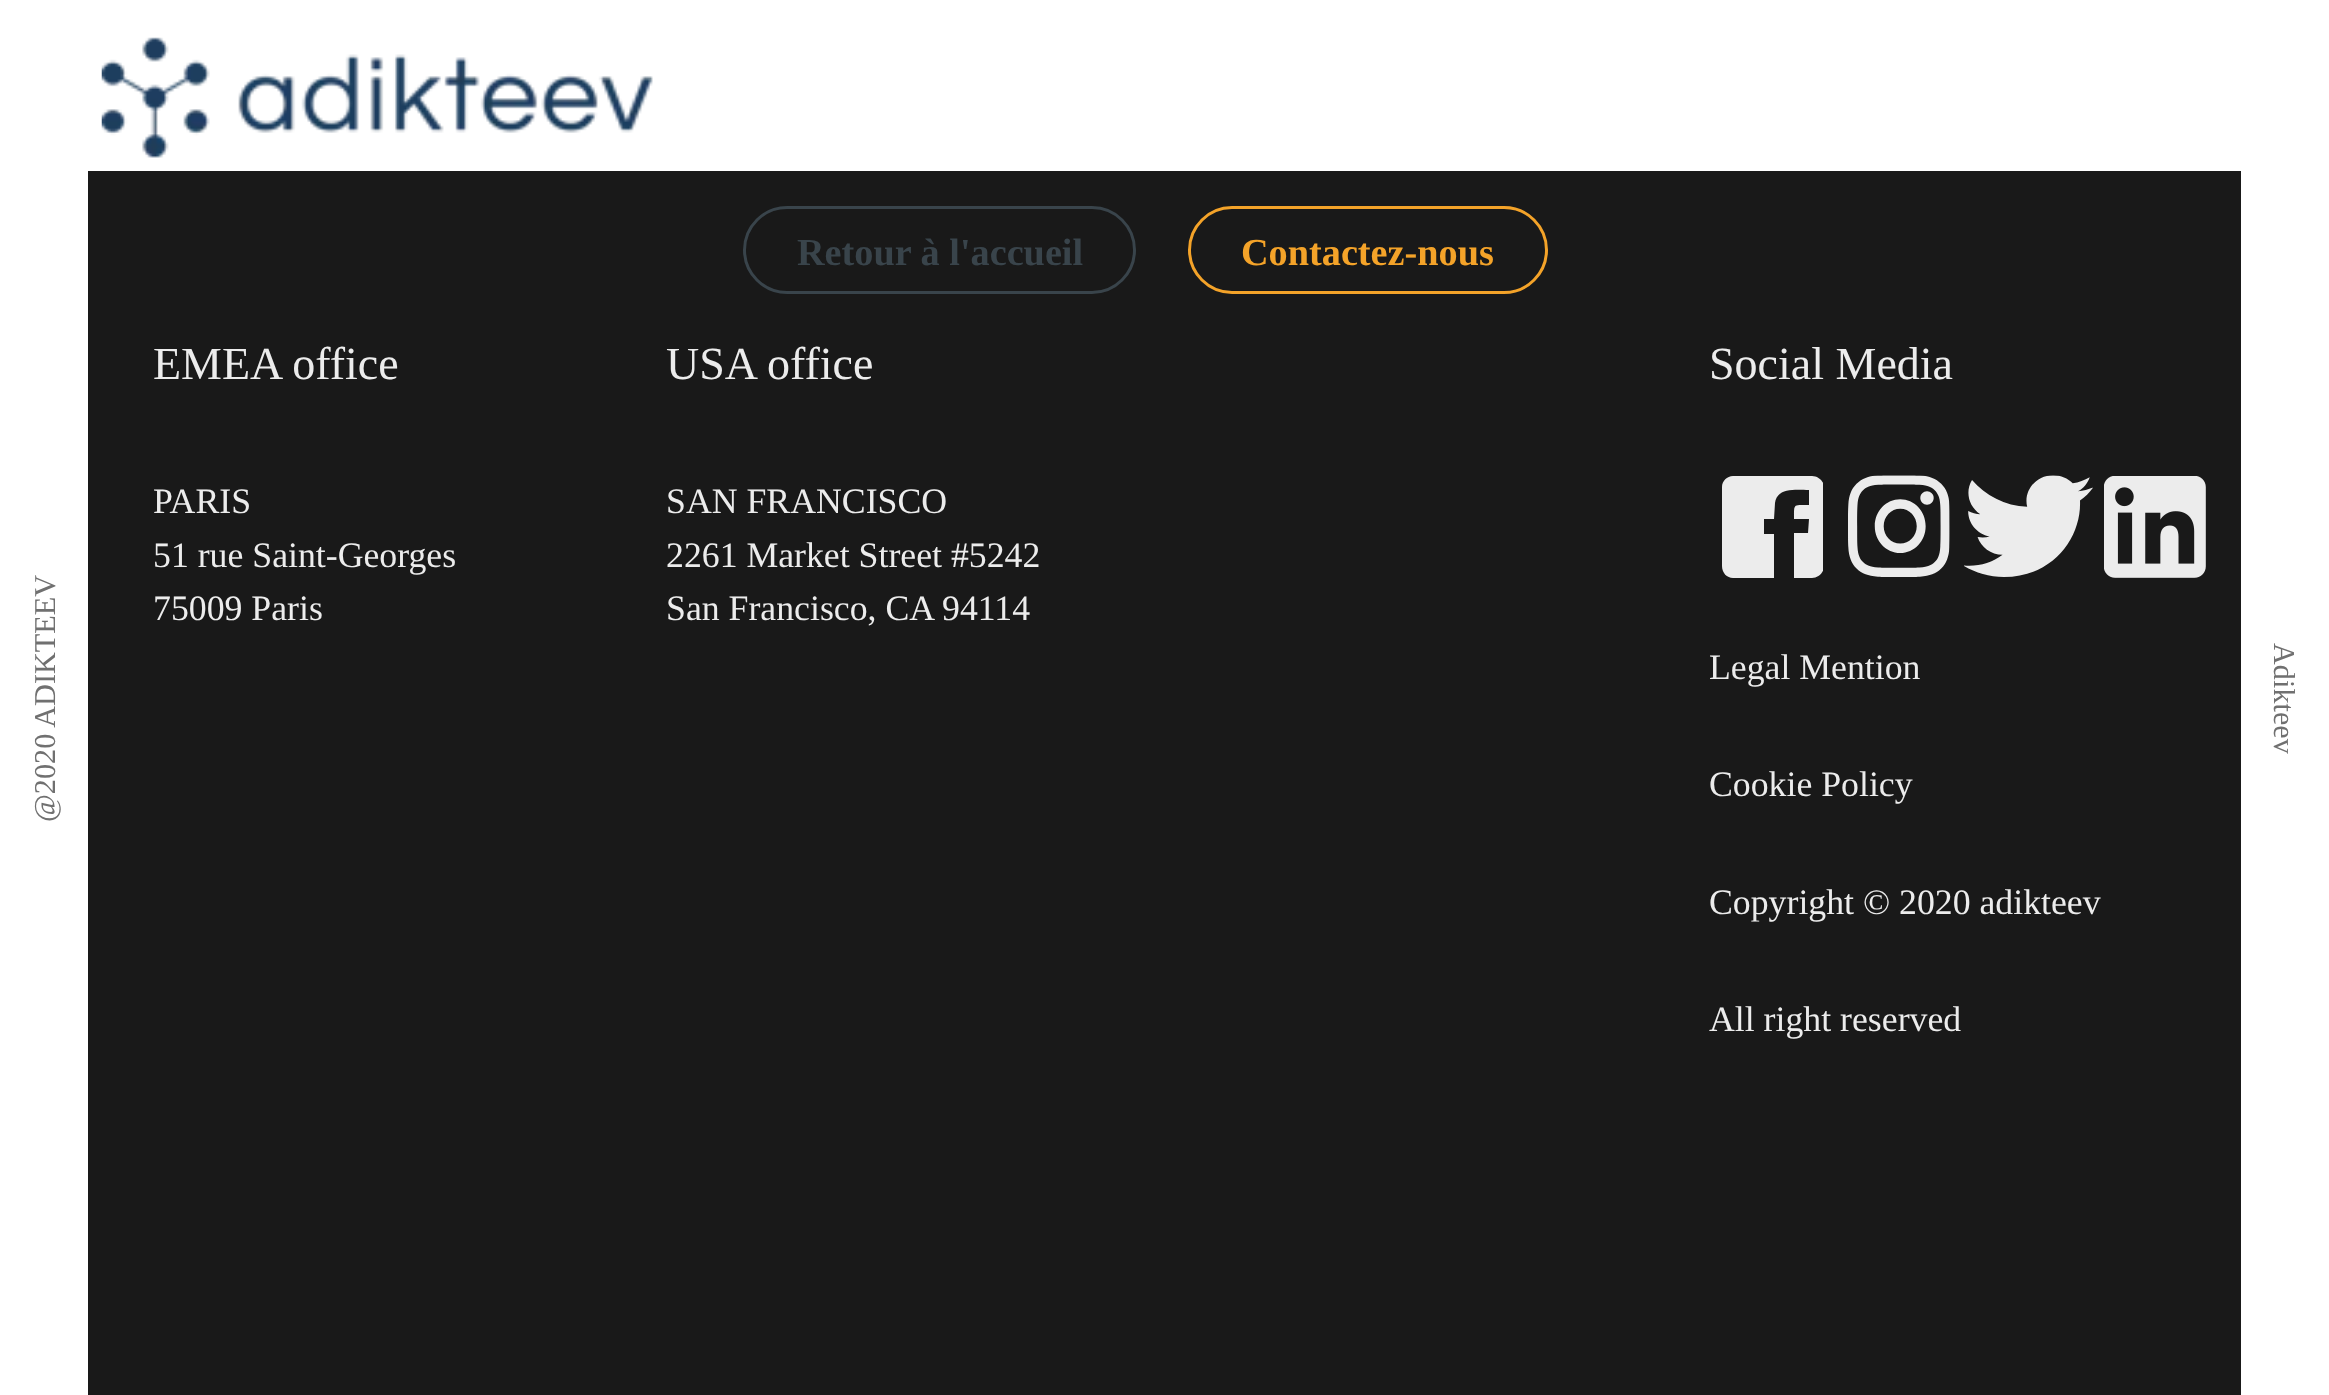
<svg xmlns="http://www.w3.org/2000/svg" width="2329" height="1395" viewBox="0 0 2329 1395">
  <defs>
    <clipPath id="clip1"><path d="M1722 476h101v102H1722z"/></clipPath>
  </defs>
  <rect width="100%" height="100%" fill="#191919"/>
  <rect x="744.5" y="207.5" width="390" height="85" rx="42.5" fill="none" stroke="#39444b" stroke-width="3"/>
  <rect x="1189.5" y="207.5" width="357" height="85" rx="42.5" fill="none" stroke="#f4a329" stroke-width="3"/>
  <g clip-path="url(#clip1)">
    <path d="M1812 476C1818 476 1824 481 1824 487V566C1824 573 1818 578 1812 578H1794V533H1808L1809 519H1794C1794 503 1793 505 1809 505V490C1797 490 1777 487 1775 503L1774 519H1764V534H1774V578H1733C1727 578 1722 573 1722 566V487C1722 481 1727 476 1733 476Z" fill="#ececec" fill-rule="evenodd"/>
  </g>
  <image x="1848" y="475" width="102" height="102" href="img/1.png"/>
  <image x="1964" y="475" width="129" height="102" href="img/2.png"/>
  <image x="2104" y="476" width="102" height="102" href="img/3.png"/>
  <path d="M0 0h2329v171H0z" fill="#fff"/>
  <image x="101" y="37" width="552" height="121" href="img/4.png"/>
  <path d="M0 171h88v1224H0z" fill="#fff"/>
  <path d="M2241 171h88v1224H2241z" fill="#fff"/>
  <text x="797" y="265" font-family="Liberation Serif" font-size="38.25" font-weight="bold" fill="#39444b">Retour à l'accueil</text>
  <text x="1241" y="265" font-family="Liberation Serif" font-size="38.25" font-weight="bold" fill="#f4a329">Contactez-nous</text>
  <text x="153" y="379" font-family="Liberation Serif" font-size="46" fill="#ececec">EMEA office</text>
  <g font-family="Liberation Serif" font-size="35.75" fill="#ececec">
    <text x="153" y="513">PARIS</text>
    <text x="153" y="567">51 rue Saint-Georges</text>
    <text x="153" y="620">75009 Paris</text>
  </g>
  <text x="666" y="379" font-family="Liberation Serif" font-size="46" fill="#ececec">USA office</text>
  <g font-family="Liberation Serif" font-size="35.75" fill="#ececec">
    <text x="666" y="513">SAN FRANCISCO</text>
    <text x="666" y="567">2261 Market Street #5242</text>
    <text x="666" y="620">San Francisco, CA 94114</text>
  </g>
  <text x="1709" y="379" font-family="Liberation Serif" font-size="46" fill="#ececec">Social Media</text>
  <g font-family="Liberation Serif" font-size="35.75" fill="#ececec">
    <text x="1709" y="679">Legal Mention</text>
    <text x="1709" y="796">Cookie Policy</text>
    <text x="1709" y="914">Copyright © 2020 adikteev</text>
    <text x="1709" y="1031">All right reserved</text>
  </g>
  <g font-family="Liberation Serif" font-size="30.25" fill="#707070">
    <text x="55" y="822" transform="rotate(-90 55 822)">@2020 ADIKTEEV</text>
    <text x="2274" y="643" transform="rotate(90 2274 643)">Adikteev</text>
  </g>
</svg>
